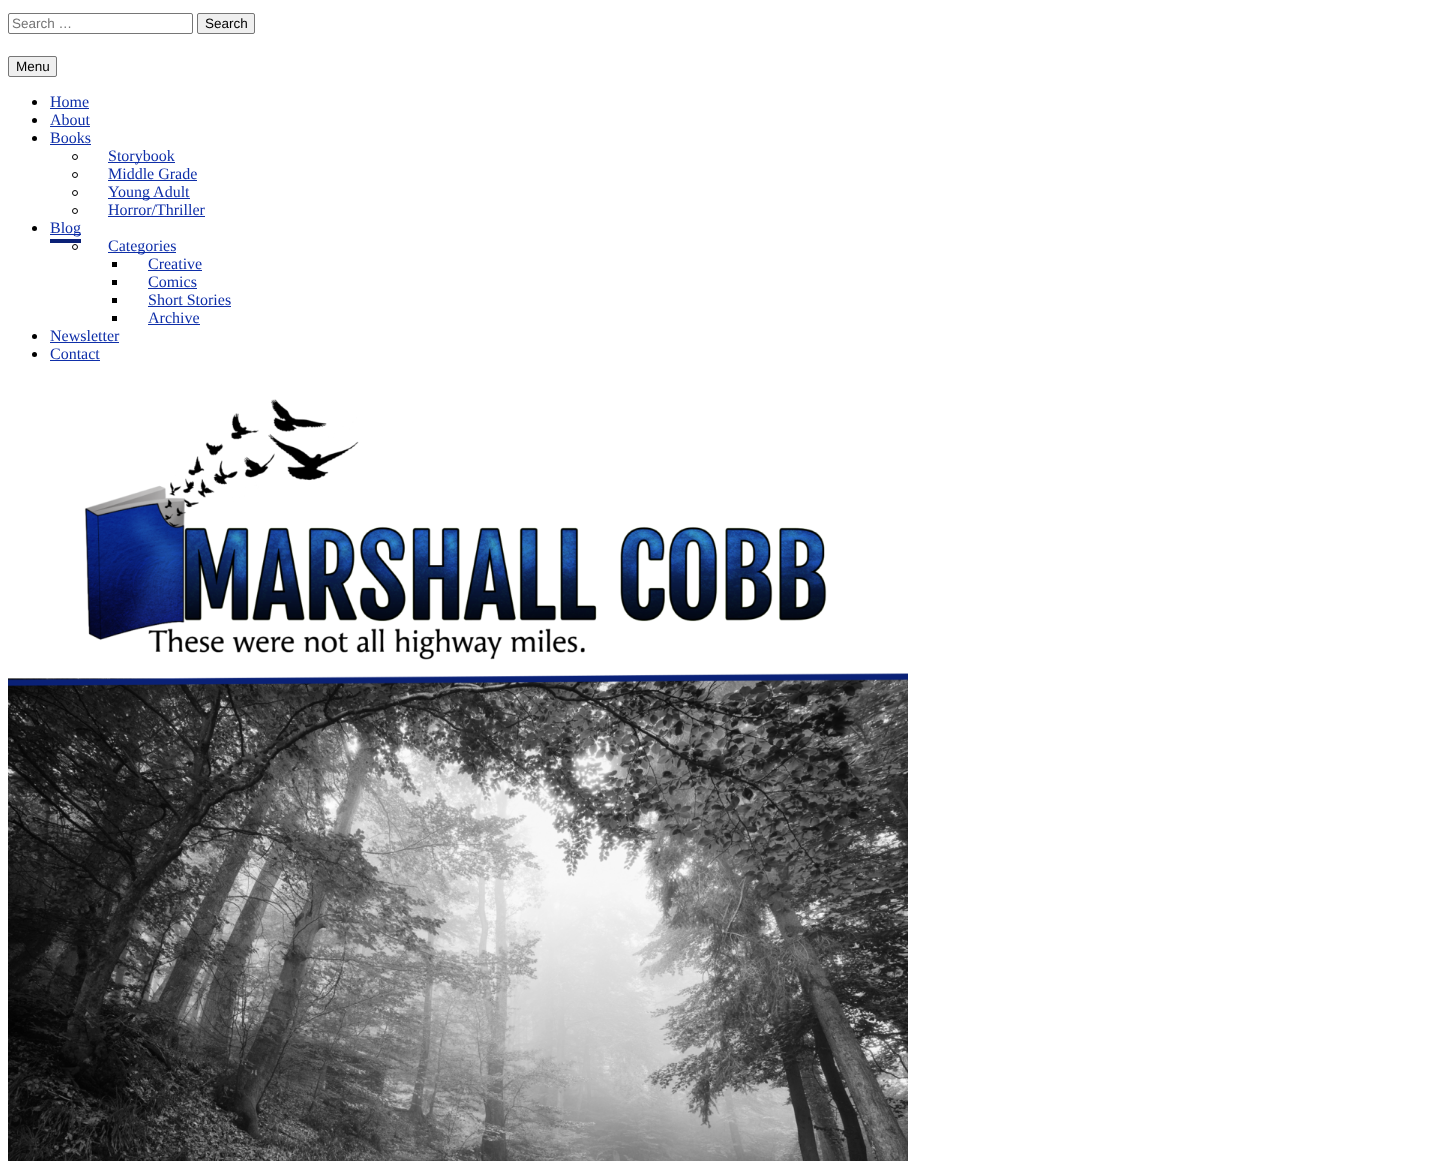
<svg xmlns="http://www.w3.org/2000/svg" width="1439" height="1161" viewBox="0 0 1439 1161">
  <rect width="100%" height="100%" fill="#fff"/>
  <rect x="8.5" y="13.5" width="184" height="20" rx="1.5" fill="none" stroke="#767676"/>
  <rect x="197.5" y="13.5" width="57" height="20" rx="1.5" fill="#efefef" stroke="#767676"/>
  <rect x="8.5" y="56.5" width="48" height="20" rx="1.5" fill="#efefef" stroke="#767676"/>
  <circle cx="34.5" cy="102.5" r="2.5" fill="#000"/>
  <path d="M50 108h39v1H50z" fill="#0f2fa9"/>
  <circle cx="34.5" cy="120.5" r="2.5" fill="#000"/>
  <path d="M50 126h40v1H50z" fill="#0f2fa9"/>
  <circle cx="34.5" cy="138.5" r="2.5" fill="#000"/>
  <path d="M50 144h41v1H50z" fill="#0f2fa9"/>
  <circle cx="75" cy="157" r="2.5" fill="none" stroke="#000"/>
  <path d="M108 162h67v1H108z" fill="#0f2fa9"/>
  <circle cx="75" cy="175" r="2.5" fill="none" stroke="#000"/>
  <path d="M108 180h89v1H108z" fill="#0f2fa9"/>
  <circle cx="75" cy="193" r="2.5" fill="none" stroke="#000"/>
  <path d="M108 198h82v1H108z" fill="#0f2fa9"/>
  <circle cx="75" cy="211" r="2.5" fill="none" stroke="#000"/>
  <path d="M108 216h97v1H108z" fill="#0f2fa9"/>
  <circle cx="34.5" cy="228.5" r="2.5" fill="#000"/>
  <path d="M50 239h31v4H50z" fill="#0a2177"/>
  <path d="M50 234h31v1H50z" fill="#0f2fa9"/>
  <circle cx="75" cy="247" r="2.5" fill="none" stroke="#000"/>
  <path d="M108 252h68v1H108z" fill="#0f2fa9"/>
  <path d="M112 262h5v5H112z" fill="#000"/>
  <path d="M148 270h54v1H148z" fill="#0f2fa9"/>
  <path d="M112 280h5v5H112z" fill="#000"/>
  <path d="M148 288h49v1H148z" fill="#0f2fa9"/>
  <path d="M112 298h5v5H112z" fill="#000"/>
  <path d="M148 306h83v1H148z" fill="#0f2fa9"/>
  <path d="M112 316h5v5H112z" fill="#000"/>
  <path d="M148 324h52v1H148z" fill="#0f2fa9"/>
  <circle cx="34.5" cy="336.5" r="2.5" fill="#000"/>
  <path d="M50 342h69v1H50z" fill="#0f2fa9"/>
  <circle cx="34.5" cy="354.5" r="2.5" fill="#000"/>
  <path d="M50 360h50v1H50z" fill="#0f2fa9"/>
  <image x="8" y="399" width="900" height="762" href="img/1.png"/>
  <text x="12" y="28" font-family="Liberation Sans" font-size="13.5" fill="#757575">Search …</text>
  <g font-family="Liberation Sans" font-size="13.5" fill="#000">
    <text x="205" y="28">Search</text>
    <text x="16" y="71">Menu</text>
  </g>
  <g font-family="Liberation Serif" font-size="16" fill="#0f2fa9">
    <text x="50" y="107">Home</text>
    <text x="50" y="125">About</text>
    <text x="50" y="143">Books</text>
    <text x="108" y="161">Storybook</text>
    <text x="108" y="179">Middle Grade</text>
    <text x="108" y="197">Young Adult</text>
    <text x="108" y="215">Horror/Thriller</text>
    <text x="50" y="233">Blog</text>
    <text x="108" y="251">Categories</text>
    <text x="148" y="269">Creative</text>
    <text x="148" y="287">Comics</text>
    <text x="148" y="305">Short Stories</text>
    <text x="148" y="323">Archive</text>
    <text x="50" y="341">Newsletter</text>
    <text x="50" y="359">Contact</text>
  </g>
</svg>
